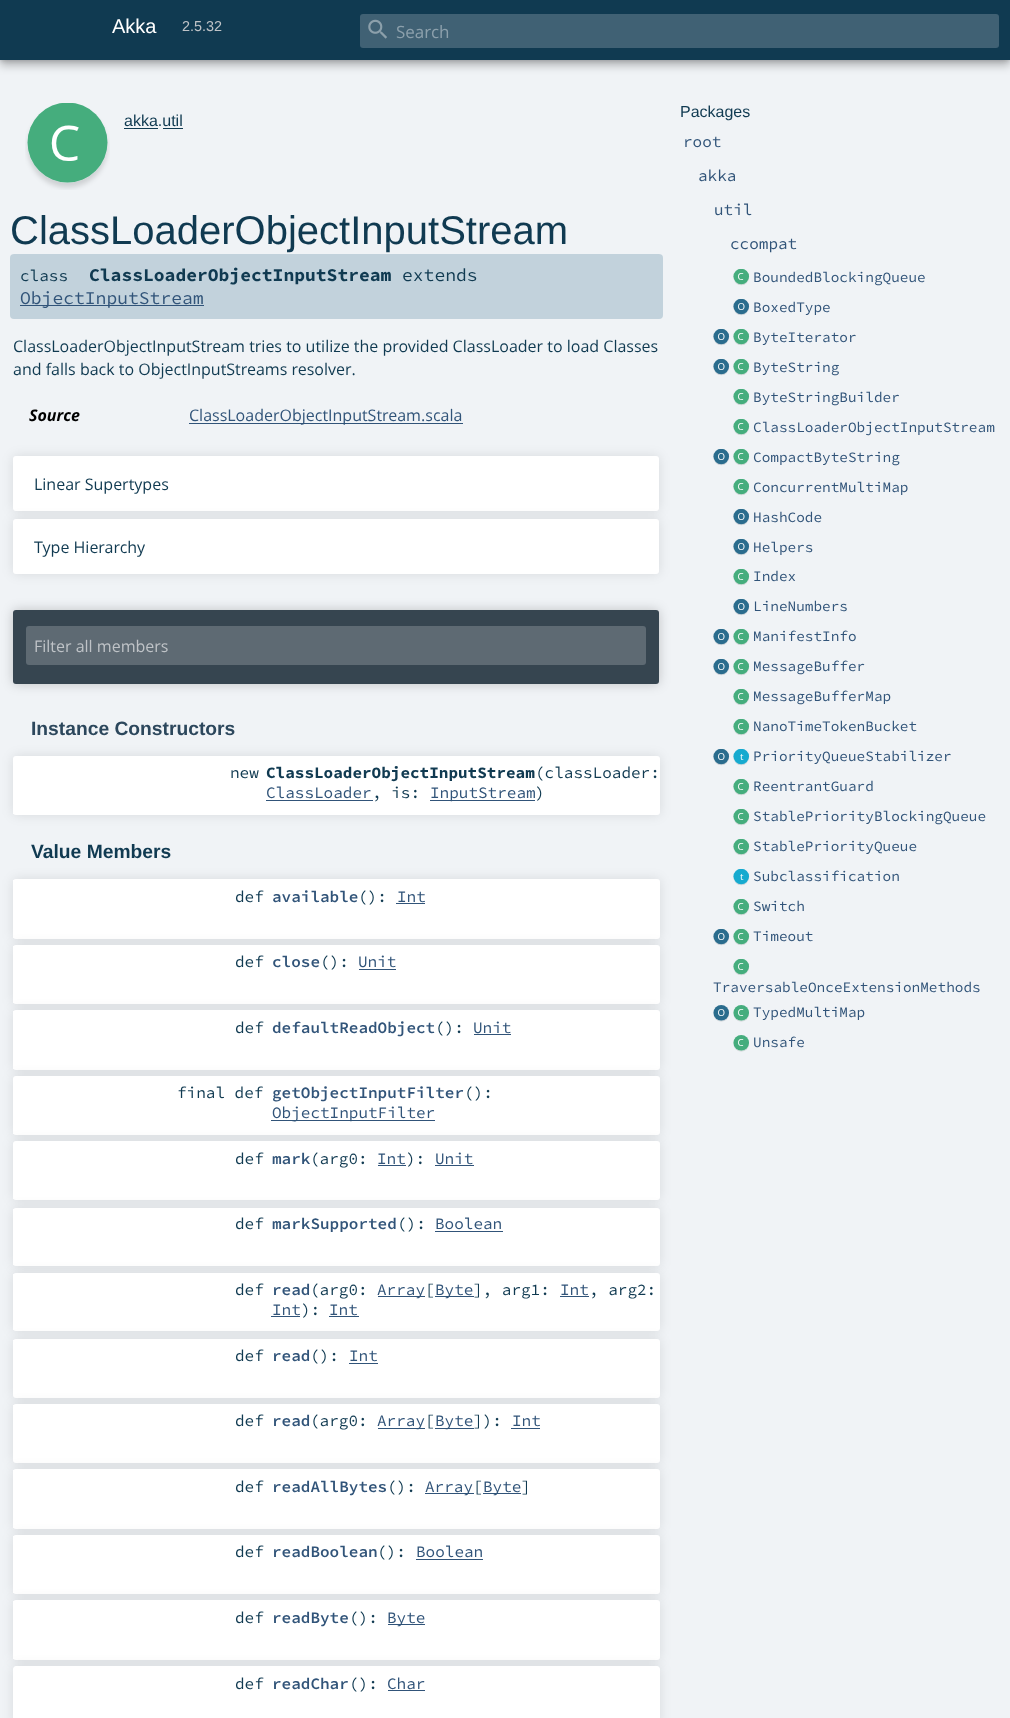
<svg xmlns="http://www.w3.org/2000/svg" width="1010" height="1718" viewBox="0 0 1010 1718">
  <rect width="100%" height="100%" fill="#f0f3f6"/>
  <path d="M0 5h1010v60H0z" fill="#00000047" filter="blur(5px)"/>
  <path d="M0 0h1010v60H0z" fill="#0000002e" filter="blur(2.5px)"/>
  <path d="M0 0h1010v60H0z" fill="#103a51"/>
  <rect x="360" y="14" width="639" height="34" rx="3" fill="#406174"/>
  <image x="368" y="19" width="19" height="20" href="img/1.png"/>
  <image x="25" y="103" width="85" height="87" href="img/2.png"/>
  <path d="M124 128h34v1H124z" fill="#103a51"/>
  <path d="M163 128h20v1H163z" fill="#103a51"/>
  <rect x="10" y="254" width="653" height="65" rx="4" fill="#c2d2dc"/>
  <path d="M20 305h184v1H20z" fill="#315479"/>
  <path d="M189 423h274v1H189z" fill="#315479"/>
  <rect x="13" y="456" width="646" height="55" rx="3" fill="#0000001a" filter="blur(6px)"/>
  <rect x="13" y="456" width="646" height="55" rx="3" fill="#fff"/>
  <rect x="13" y="519" width="646" height="55" rx="3" fill="#0000001a" filter="blur(6px)"/>
  <rect x="13" y="519" width="646" height="55" rx="3" fill="#fff"/>
  <rect x="13" y="610" width="646" height="74" rx="3" fill="#00000033" filter="blur(6px)"/>
  <rect x="13" y="610" width="646" height="74" rx="3" fill="#364550"/>
  <rect x="26" y="626" width="620" height="39" rx="3" fill="#5e6a73"/>
  <rect x="13" y="756" width="647" height="59" rx="3" fill="#0000001a" filter="blur(6px)"/>
  <rect x="13" y="756" width="647" height="59" rx="3" fill="#fff"/>
  <path d="M13 813h1v1H13z" fill="#fff"/>
  <path d="M266 800h107v1H266z" fill="#315479"/>
  <path d="M430 800h105v1H430z" fill="#315479"/>
  <rect x="13" y="879" width="647" height="60" rx="3" fill="#0000001a" filter="blur(6px)"/>
  <rect x="13" y="879" width="647" height="60" rx="3" fill="#fff"/>
  <path d="M13 880h1v58H13z" fill="#fff"/>
  <path d="M396 903h29v1H396z" fill="#315479"/>
  <rect x="13" y="945" width="647" height="59" rx="3" fill="#0000001a" filter="blur(6px)"/>
  <rect x="13" y="945" width="647" height="59" rx="3" fill="#fff"/>
  <path d="M13 946h1v57H13z" fill="#fff"/>
  <path d="M359 969h37v1H359z" fill="#315479"/>
  <rect x="13" y="1010" width="647" height="60" rx="3" fill="#0000001a" filter="blur(6px)"/>
  <rect x="13" y="1010" width="647" height="60" rx="3" fill="#fff"/>
  <path d="M13 1011h1v58H13z" fill="#fff"/>
  <path d="M474 1034h37v1H474z" fill="#315479"/>
  <rect x="13" y="1076" width="647" height="59" rx="3" fill="#0000001a" filter="blur(6px)"/>
  <rect x="13" y="1076" width="647" height="59" rx="3" fill="#fff"/>
  <path d="M13 1133h1v1H13z" fill="#fff"/>
  <path d="M271 1120h164v1H271z" fill="#315479"/>
  <rect x="13" y="1141" width="647" height="59" rx="3" fill="#0000001a" filter="blur(6px)"/>
  <rect x="13" y="1141" width="647" height="59" rx="3" fill="#fff"/>
  <path d="M13 1198h1v1H13z" fill="#fff"/>
  <path d="M378 1165h28v1H378z" fill="#315479"/>
  <path d="M435 1165h39v1H435z" fill="#315479"/>
  <rect x="13" y="1208" width="647" height="58" rx="3" fill="#0000001a" filter="blur(6px)"/>
  <rect x="13" y="1208" width="647" height="58" rx="3" fill="#fff"/>
  <path d="M13 1209h1v56H13z" fill="#fff"/>
  <path d="M435 1231h68v1H435z" fill="#315479"/>
  <rect x="13" y="1273" width="647" height="58" rx="3" fill="#0000001a" filter="blur(6px)"/>
  <rect x="13" y="1273" width="647" height="58" rx="3" fill="#fff"/>
  <path d="M13 1274h1v56H13z" fill="#fff"/>
  <path d="M378 1296h47v1H378z" fill="#315479"/>
  <path d="M435 1296h39v1H435z" fill="#315479"/>
  <path d="M560 1296h29v1H560z" fill="#315479"/>
  <path d="M271 1316h29v1H271z" fill="#315479"/>
  <path d="M329 1316h30v1H329z" fill="#315479"/>
  <rect x="13" y="1339" width="647" height="59" rx="3" fill="#0000001a" filter="blur(6px)"/>
  <rect x="13" y="1339" width="647" height="59" rx="3" fill="#fff"/>
  <path d="M13 1340h1v1H13z" fill="#fff"/>
  <path d="M349 1363h29v1H349z" fill="#315479"/>
  <rect x="13" y="1404" width="647" height="59" rx="3" fill="#0000001a" filter="blur(6px)"/>
  <rect x="13" y="1404" width="647" height="59" rx="3" fill="#fff"/>
  <path d="M13 1405h1v1H13z" fill="#fff"/>
  <path d="M378 1428h47v1H378z" fill="#315479"/>
  <path d="M435 1428h39v1H435z" fill="#315479"/>
  <path d="M511 1428h29v1H511z" fill="#315479"/>
  <rect x="13" y="1469" width="647" height="60" rx="3" fill="#0000001a" filter="blur(6px)"/>
  <rect x="13" y="1469" width="647" height="60" rx="3" fill="#fff"/>
  <path d="M13 1470h1v58H13z" fill="#fff"/>
  <path d="M425 1493h49v1H425z" fill="#315479"/>
  <path d="M483 1493h38v1H483z" fill="#315479"/>
  <rect x="13" y="1535" width="647" height="59" rx="3" fill="#0000001a" filter="blur(6px)"/>
  <rect x="13" y="1535" width="647" height="59" rx="3" fill="#fff"/>
  <path d="M13 1536h1v57H13z" fill="#fff"/>
  <path d="M416 1559h67v1H416z" fill="#315479"/>
  <rect x="13" y="1600" width="647" height="60" rx="3" fill="#0000001a" filter="blur(6px)"/>
  <rect x="13" y="1600" width="647" height="60" rx="3" fill="#fff"/>
  <path d="M13 1601h1v58H13z" fill="#fff"/>
  <path d="M388 1624h37v1H388z" fill="#315479"/>
  <rect x="13" y="1666" width="647" height="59" rx="3" fill="#0000001a" filter="blur(6px)"/>
  <path d="M16 1666H657C658.5 1666 660 1667.5 660 1669V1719H13V1669C13 1667.5 14.5 1666 16 1666Z" fill="#fff"/>
  <path d="M388 1690h37v1H388z" fill="#315479"/>
  <image x="733" y="269" width="17" height="17" href="img/3.png"/>
  <image x="733" y="299" width="17" height="17" href="img/4.png"/>
  <image x="713" y="329" width="17" height="17" href="img/4.png"/>
  <image x="733" y="329" width="17" height="17" href="img/3.png"/>
  <image x="713" y="359" width="17" height="17" href="img/4.png"/>
  <image x="733" y="359" width="17" height="17" href="img/3.png"/>
  <image x="733" y="389" width="17" height="17" href="img/3.png"/>
  <image x="733" y="419" width="17" height="17" href="img/3.png"/>
  <image x="713" y="449" width="17" height="17" href="img/4.png"/>
  <image x="733" y="449" width="17" height="17" href="img/3.png"/>
  <image x="733" y="479" width="17" height="17" href="img/3.png"/>
  <image x="733" y="509" width="17" height="17" href="img/4.png"/>
  <image x="733" y="539" width="17" height="17" href="img/4.png"/>
  <image x="733" y="569" width="17" height="17" href="img/3.png"/>
  <image x="733" y="599" width="17" height="17" href="img/4.png"/>
  <image x="713" y="629" width="17" height="17" href="img/4.png"/>
  <image x="733" y="629" width="17" height="17" href="img/3.png"/>
  <image x="713" y="659" width="17" height="17" href="img/4.png"/>
  <image x="733" y="659" width="17" height="17" href="img/3.png"/>
  <image x="733" y="689" width="17" height="17" href="img/3.png"/>
  <image x="733" y="719" width="17" height="17" href="img/3.png"/>
  <image x="713" y="749" width="17" height="17" href="img/4.png"/>
  <image x="733" y="749" width="17" height="17" href="img/5.png"/>
  <image x="733" y="779" width="17" height="17" href="img/3.png"/>
  <image x="733" y="809" width="17" height="17" href="img/3.png"/>
  <image x="733" y="839" width="17" height="17" href="img/3.png"/>
  <image x="733" y="869" width="17" height="17" href="img/5.png"/>
  <image x="733" y="899" width="17" height="17" href="img/3.png"/>
  <image x="713" y="929" width="17" height="17" href="img/4.png"/>
  <image x="733" y="929" width="17" height="17" href="img/3.png"/>
  <image x="733" y="959" width="17" height="17" href="img/3.png"/>
  <image x="713" y="1005" width="16" height="17" href="img/6.png"/>
  <image x="733" y="1005" width="16" height="17" href="img/7.png"/>
  <image x="733" y="1035" width="16" height="17" href="img/8.png"/>
  <text x="112" y="33" font-family="Liberation Sans" font-size="20" fill="#fff">Akka</text>
  <text x="182" y="31" font-family="Liberation Sans" font-size="14.4" fill="#bfc3c7">2.5.32</text>
  <text x="396" y="38" font-family="Open Sans" font-size="17" fill="#8ca0ac">Search</text>
  <text x="124" y="126" font-family="Liberation Sans" font-size="16" fill="#103a51">akka.util</text>
  <text x="10" y="244" font-family="Liberation Sans" font-size="40" fill="#103a51">ClassLoaderObjectInputStream</text>
  <text x="89" y="281" font-family="Source Code Pro" font-size="18" font-weight="bold" fill="#103a51">ClassLoaderObjectInputStream</text>
  <text x="402" y="281" font-family="Source Code Pro" font-size="18" fill="#103a51">extends</text>
  <text x="20" y="304" font-family="Source Code Pro" font-size="18" fill="#315479">ObjectInputStream</text>
  <text x="20" y="281" font-family="Source Code Pro" font-size="16" fill="#103a51">class</text>
  <g font-family="Open Sans" font-size="16" fill="#103a51">
    <text x="13" y="352">ClassLoaderObjectInputStream tries to utilize the provided ClassLoader to load Classes</text>
    <text x="13" y="375">and falls back to ObjectInputStreams resolver.</text>
  </g>
  <text x="29" y="421" font-family="Open Sans" font-size="16" font-weight="bold" font-style="italic" fill="#000">Source</text>
  <text x="189" y="421" font-family="Open Sans" font-size="16" fill="#315479">ClassLoaderObjectInputStream.scala</text>
  <g font-family="Open Sans" font-size="16" fill="#103a51">
    <text x="34" y="490">Linear Supertypes</text>
    <text x="34" y="553">Type Hierarchy</text>
  </g>
  <text x="34" y="652" font-family="Open Sans" font-size="16" fill="#bfc3c7">Filter all members</text>
  <text x="31" y="735" font-family="Liberation Sans" font-size="19.25" font-weight="bold" fill="#2c475c">Instance Constructors</text>
  <text x="230" y="778" font-family="Source Code Pro" font-size="16" fill="#103a51">new</text>
  <text x="266" y="778" font-family="Source Code Pro" font-size="16" font-weight="bold" fill="#103a51">ClassLoaderObjectInputStream</text>
  <text x="535" y="778" font-family="Source Code Pro" font-size="16" fill="#103a51">(classLoader:</text>
  <text x="266" y="798" font-family="Source Code Pro" font-size="16" fill="#315479">ClassLoader</text>
  <text x="372" y="798" font-family="Source Code Pro" font-size="16" fill="#103a51">, is:</text>
  <text x="430" y="798" font-family="Source Code Pro" font-size="16" fill="#315479">InputStream</text>
  <text x="535" y="798" font-family="Source Code Pro" font-size="16" fill="#103a51">)</text>
  <text x="31" y="858" font-family="Liberation Sans" font-size="19.25" font-weight="bold" fill="#103a51">Value Members</text>
  <text x="235" y="902" font-family="Source Code Pro" font-size="16" fill="#103a51">def</text>
  <text x="272" y="902" font-family="Source Code Pro" font-size="16" font-weight="600" fill="#315479">available</text>
  <text x="358" y="902" font-family="Source Code Pro" font-size="16" fill="#103a51">():</text>
  <text x="397" y="902" font-family="Source Code Pro" font-size="16" fill="#315479">Int</text>
  <text x="235" y="967" font-family="Source Code Pro" font-size="16" fill="#103a51">def</text>
  <text x="272" y="967" font-family="Source Code Pro" font-size="16" font-weight="600" fill="#315479">close</text>
  <text x="320" y="967" font-family="Source Code Pro" font-size="16" fill="#103a51">():</text>
  <text x="358" y="967" font-family="Source Code Pro" font-size="16" fill="#315479">Unit</text>
  <text x="235" y="1033" font-family="Source Code Pro" font-size="16" fill="#103a51">def</text>
  <text x="272" y="1033" font-family="Source Code Pro" font-size="16" font-weight="600" fill="#315479">defaultReadObject</text>
  <text x="435" y="1033" font-family="Source Code Pro" font-size="16" fill="#103a51">():</text>
  <text x="473" y="1033" font-family="Source Code Pro" font-size="16" fill="#315479">Unit</text>
  <text x="177" y="1098" font-family="Source Code Pro" font-size="16" fill="#103a51">final def</text>
  <text x="272" y="1098" font-family="Source Code Pro" font-size="16" font-weight="600" fill="#315479">getObjectInputFilter</text>
  <text x="464" y="1098" font-family="Source Code Pro" font-size="16" fill="#103a51">():</text>
  <text x="272" y="1118" font-family="Source Code Pro" font-size="16" fill="#315479">ObjectInputFilter</text>
  <text x="235" y="1164" font-family="Source Code Pro" font-size="16" fill="#103a51">def</text>
  <text x="272" y="1164" font-family="Source Code Pro" font-size="16" font-weight="600" fill="#315479">mark</text>
  <text x="310" y="1164" font-family="Source Code Pro" font-size="16" fill="#103a51">(arg0:</text>
  <text x="377" y="1164" font-family="Source Code Pro" font-size="16" fill="#315479">Int</text>
  <text x="406" y="1164" font-family="Source Code Pro" font-size="16" fill="#103a51">):</text>
  <text x="435" y="1164" font-family="Source Code Pro" font-size="16" fill="#315479">Unit</text>
  <text x="235" y="1229" font-family="Source Code Pro" font-size="16" fill="#103a51">def</text>
  <text x="272" y="1229" font-family="Source Code Pro" font-size="16" font-weight="600" fill="#315479">markSupported</text>
  <text x="397" y="1229" font-family="Source Code Pro" font-size="16" fill="#103a51">():</text>
  <text x="435" y="1229" font-family="Source Code Pro" font-size="16" fill="#315479">Boolean</text>
  <text x="235" y="1295" font-family="Source Code Pro" font-size="16" fill="#103a51">def</text>
  <text x="272" y="1295" font-family="Source Code Pro" font-size="16" font-weight="600" fill="#315479">read</text>
  <text x="310" y="1295" font-family="Source Code Pro" font-size="16" fill="#103a51">(arg0:</text>
  <text x="377" y="1295" font-family="Source Code Pro" font-size="16" fill="#315479">Array</text>
  <text x="425" y="1295" font-family="Source Code Pro" font-size="16" fill="#103a51">[</text>
  <text x="435" y="1295" font-family="Source Code Pro" font-size="16" fill="#315479">Byte</text>
  <text x="473" y="1295" font-family="Source Code Pro" font-size="16" fill="#103a51">], arg1:</text>
  <text x="560" y="1295" font-family="Source Code Pro" font-size="16" fill="#315479">Int</text>
  <text x="589" y="1295" font-family="Source Code Pro" font-size="16" fill="#103a51">, arg2:</text>
  <text x="272" y="1315" font-family="Source Code Pro" font-size="16" fill="#315479">Int</text>
  <text x="301" y="1315" font-family="Source Code Pro" font-size="16" fill="#103a51">):</text>
  <text x="329" y="1315" font-family="Source Code Pro" font-size="16" fill="#315479">Int</text>
  <text x="235" y="1361" font-family="Source Code Pro" font-size="16" fill="#103a51">def</text>
  <text x="272" y="1361" font-family="Source Code Pro" font-size="16" font-weight="600" fill="#315479">read</text>
  <text x="310" y="1361" font-family="Source Code Pro" font-size="16" fill="#103a51">():</text>
  <text x="349" y="1361" font-family="Source Code Pro" font-size="16" fill="#315479">Int</text>
  <text x="235" y="1426" font-family="Source Code Pro" font-size="16" fill="#103a51">def</text>
  <text x="272" y="1426" font-family="Source Code Pro" font-size="16" font-weight="600" fill="#315479">read</text>
  <text x="310" y="1426" font-family="Source Code Pro" font-size="16" fill="#103a51">(arg0:</text>
  <text x="377" y="1426" font-family="Source Code Pro" font-size="16" fill="#315479">Array</text>
  <text x="425" y="1426" font-family="Source Code Pro" font-size="16" fill="#103a51">[</text>
  <text x="435" y="1426" font-family="Source Code Pro" font-size="16" fill="#315479">Byte</text>
  <text x="473" y="1426" font-family="Source Code Pro" font-size="16" fill="#103a51">]):</text>
  <text x="512" y="1426" font-family="Source Code Pro" font-size="16" fill="#315479">Int</text>
  <text x="235" y="1492" font-family="Source Code Pro" font-size="16" fill="#103a51">def</text>
  <text x="272" y="1492" font-family="Source Code Pro" font-size="16" font-weight="600" fill="#315479">readAllBytes</text>
  <text x="387" y="1492" font-family="Source Code Pro" font-size="16" fill="#103a51">():</text>
  <text x="425" y="1492" font-family="Source Code Pro" font-size="16" fill="#315479">Array</text>
  <text x="473" y="1492" font-family="Source Code Pro" font-size="16" fill="#103a51">[</text>
  <text x="483" y="1492" font-family="Source Code Pro" font-size="16" fill="#315479">Byte</text>
  <g font-family="Source Code Pro" font-size="16" fill="#103a51">
    <text x="521" y="1492">]</text>
    <text x="235" y="1557">def</text>
  </g>
  <text x="272" y="1557" font-family="Source Code Pro" font-size="16" font-weight="600" fill="#315479">readBoolean</text>
  <text x="377" y="1557" font-family="Source Code Pro" font-size="16" fill="#103a51">():</text>
  <text x="416" y="1557" font-family="Source Code Pro" font-size="16" fill="#315479">Boolean</text>
  <text x="235" y="1623" font-family="Source Code Pro" font-size="16" fill="#103a51">def</text>
  <text x="272" y="1623" font-family="Source Code Pro" font-size="16" font-weight="600" fill="#315479">readByte</text>
  <text x="349" y="1623" font-family="Source Code Pro" font-size="16" fill="#103a51">():</text>
  <text x="387" y="1623" font-family="Source Code Pro" font-size="16" fill="#315479">Byte</text>
  <text x="235" y="1689" font-family="Source Code Pro" font-size="16" fill="#103a51">def</text>
  <text x="272" y="1689" font-family="Source Code Pro" font-size="16" font-weight="600" fill="#315479">readChar</text>
  <text x="349" y="1689" font-family="Source Code Pro" font-size="16" fill="#103a51">():</text>
  <text x="387" y="1689" font-family="Source Code Pro" font-size="16" fill="#315479">Char</text>
  <text x="680" y="117" font-family="Liberation Sans" font-size="16" fill="#103a51">Packages</text>
  <g font-family="Source Code Pro" font-size="16" fill="#315479">
    <text x="683" y="147">root</text>
    <text x="698" y="181">akka</text>
    <text x="714" y="215">util</text>
    <text x="730" y="249">ccompat</text>
  </g>
  <g font-family="Source Code Pro" font-size="14.4" fill="#315479">
    <text x="753" y="282">BoundedBlockingQueue</text>
    <text x="753" y="312">BoxedType</text>
    <text x="753" y="342">ByteIterator</text>
    <text x="753" y="372">ByteString</text>
    <text x="753" y="402">ByteStringBuilder</text>
    <text x="753" y="432">ClassLoaderObjectInputStream</text>
    <text x="753" y="462">CompactByteString</text>
    <text x="753" y="492">ConcurrentMultiMap</text>
    <text x="753" y="522">HashCode</text>
    <text x="753" y="552">Helpers</text>
    <text x="753" y="581">Index</text>
    <text x="753" y="611">LineNumbers</text>
    <text x="753" y="641">ManifestInfo</text>
    <text x="753" y="671">MessageBuffer</text>
    <text x="753" y="701">MessageBufferMap</text>
    <text x="753" y="731">NanoTimeTokenBucket</text>
    <text x="753" y="761">PriorityQueueStabilizer</text>
    <text x="753" y="791">ReentrantGuard</text>
    <text x="753" y="821">StablePriorityBlockingQueue</text>
    <text x="753" y="851">StablePriorityQueue</text>
    <text x="753" y="881">Subclassification</text>
    <text x="753" y="911">Switch</text>
    <text x="753" y="941">Timeout</text>
    <text x="713" y="992">TraversableOnceExtensionMethods</text>
    <text x="753" y="1017">TypedMultiMap</text>
    <text x="753" y="1047">Unsafe</text>
  </g>
</svg>
